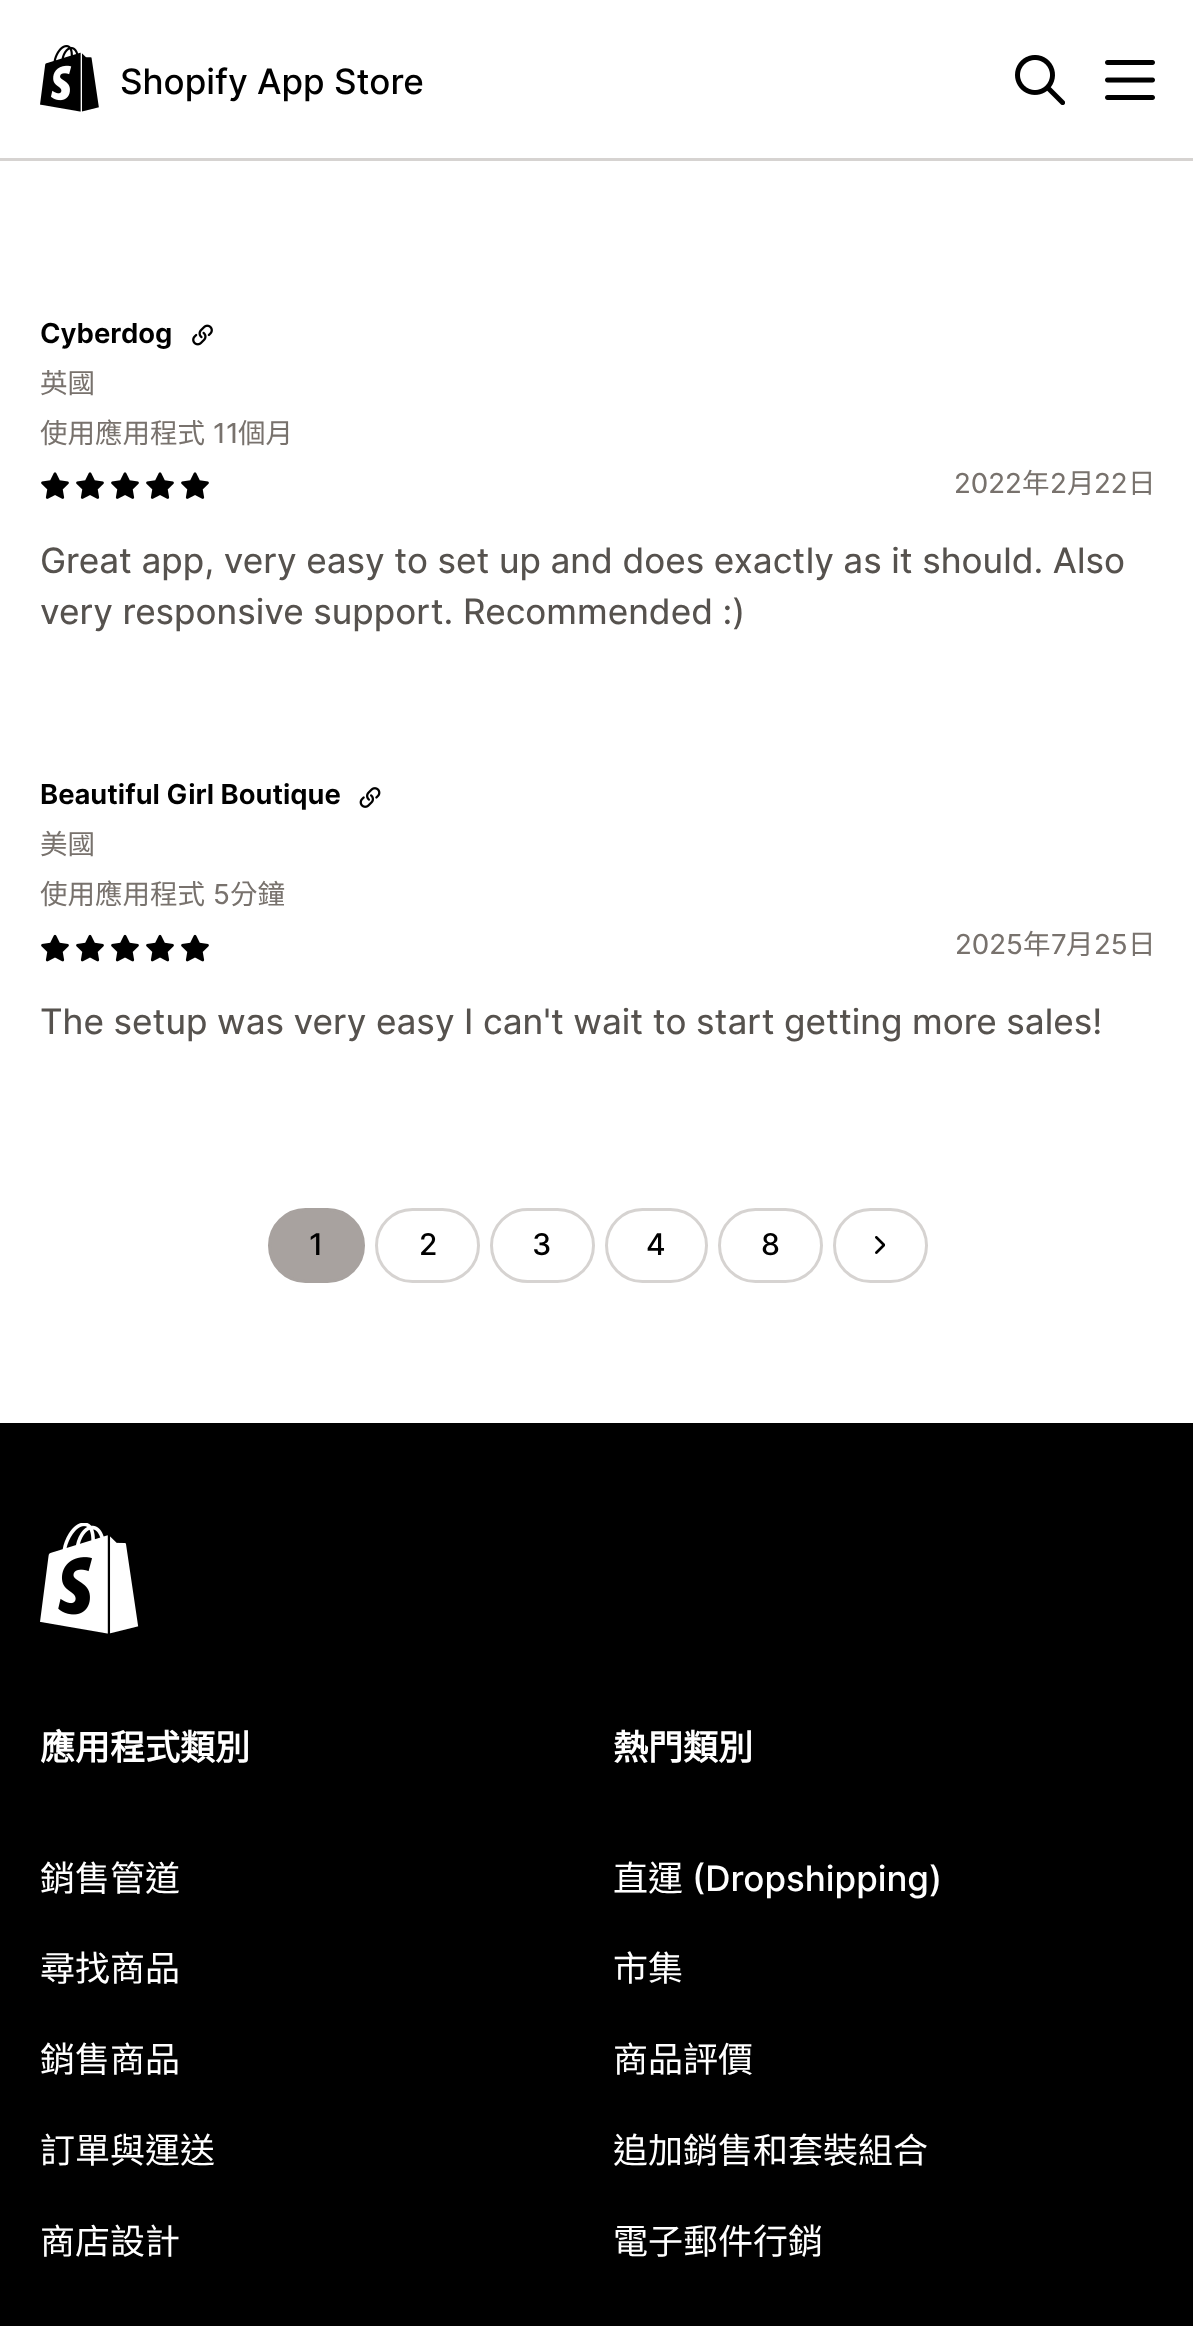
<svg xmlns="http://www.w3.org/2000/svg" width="1193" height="2326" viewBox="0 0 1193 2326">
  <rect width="100%" height="100%" fill="#fff"/>
  <path d="M0 158h1193v3H0z" fill="#d6d3d1"/>
  <image x="40" y="45" width="59" height="67" href="img/1.png"/>
  <image x="1015" y="55" width="50" height="50" href="img/2.png"/>
  <image x="1105" y="60" width="50" height="40" href="img/3.png"/>
  <image x="192" y="324" width="21" height="22" href="img/4.png"/>
  <image x="41" y="472" width="28" height="27" href="img/5.png"/>
  <image x="76" y="472" width="28" height="27" href="img/5.png"/>
  <image x="111" y="472" width="28" height="27" href="img/5.png"/>
  <image x="146" y="472" width="28" height="27" href="img/5.png"/>
  <image x="181" y="472" width="28" height="27" href="img/5.png"/>
  <image x="359" y="787" width="22" height="21" href="img/6.png"/>
  <image x="41" y="934" width="28" height="28" href="img/7.png"/>
  <image x="76" y="934" width="28" height="28" href="img/7.png"/>
  <image x="111" y="934" width="28" height="28" href="img/7.png"/>
  <image x="146" y="934" width="28" height="28" href="img/7.png"/>
  <image x="181" y="934" width="28" height="28" href="img/7.png"/>
  <rect x="269.5" y="1209.5" width="94" height="72" rx="36" fill="#a8a29f" stroke="#a8a29f" stroke-width="3"/>
  <rect x="376.5" y="1209.5" width="102" height="72" rx="36" fill="none" stroke="#d6d3d1" stroke-width="3"/>
  <rect x="491.5" y="1209.5" width="102" height="72" rx="36" fill="none" stroke="#d6d3d1" stroke-width="3"/>
  <rect x="606.5" y="1209.5" width="100" height="72" rx="36" fill="none" stroke="#d6d3d1" stroke-width="3"/>
  <rect x="719.5" y="1209.5" width="102" height="72" rx="36" fill="none" stroke="#d6d3d1" stroke-width="3"/>
  <rect x="834.5" y="1209.5" width="92" height="72" rx="36" fill="none" stroke="#d6d3d1" stroke-width="3"/>
  <image x="875" y="1236" width="10" height="18" href="img/8.png"/>
  <path d="M0 1423h1193v903H0z" fill="#000"/>
  <image x="40" y="1523" width="99" height="111" href="img/9.png"/>
  <text x="120" y="94" font-family="Inter" font-size="35" font-weight="500" fill="#000">Shopify App Store</text>
  <text x="40" y="343" font-family="Inter" font-size="27.5" font-weight="600" fill="#000">Cyberdog</text>
  <g font-family="Noto Sans CJK TC" font-size="27.5" fill="#78726d">
    <text x="40" y="393">英國</text>
    <text x="40" y="443">使用應用程式</text>
  </g>
  <text x="213" y="443" font-family="Inter" font-size="27.5" fill="#78726d">11</text>
  <text x="238" y="443" font-family="Noto Sans CJK TC" font-size="27.5" fill="#78726d">個月</text>
  <text x="954" y="493" font-family="Inter" font-size="27.5" fill="#78726d">2022</text>
  <text x="1022" y="493" font-family="Noto Sans CJK TC" font-size="27.5" fill="#78726d">年</text>
  <text x="1050" y="493" font-family="Inter" font-size="27.5" fill="#78726d">2</text>
  <text x="1067" y="493" font-family="Noto Sans CJK TC" font-size="27.5" fill="#78726d">月</text>
  <text x="1094" y="493" font-family="Inter" font-size="27.5" fill="#78726d">22</text>
  <text x="1128" y="493" font-family="Noto Sans CJK TC" font-size="27.5" fill="#78726d">日</text>
  <g font-family="Inter" font-size="35" fill="#56524e">
    <text x="40" y="573">Great app, very easy to set up and does exactly as it should. Also</text>
    <text x="40" y="624">very responsive support. Recommended :)</text>
  </g>
  <text x="40" y="804" font-family="Inter" font-size="27.5" font-weight="600" fill="#000">Beautiful Girl Boutique</text>
  <g font-family="Noto Sans CJK TC" font-size="27.5" fill="#78726d">
    <text x="40" y="854">美國</text>
    <text x="40" y="904">使用應用程式</text>
  </g>
  <text x="213" y="904" font-family="Inter" font-size="27.5" fill="#78726d">5</text>
  <text x="230" y="904" font-family="Noto Sans CJK TC" font-size="27.5" fill="#78726d">分鐘</text>
  <text x="955" y="954" font-family="Inter" font-size="27.5" fill="#78726d">2025</text>
  <text x="1023" y="954" font-family="Noto Sans CJK TC" font-size="27.5" fill="#78726d">年</text>
  <text x="1051" y="954" font-family="Inter" font-size="27.5" fill="#78726d">7</text>
  <text x="1066" y="954" font-family="Noto Sans CJK TC" font-size="27.5" fill="#78726d">月</text>
  <text x="1094" y="954" font-family="Inter" font-size="27.5" fill="#78726d">25</text>
  <text x="1128" y="954" font-family="Noto Sans CJK TC" font-size="27.5" fill="#78726d">日</text>
  <text x="40" y="1034" font-family="Inter" font-size="35" fill="#56524e">The setup was very easy I can't wait to start getting more sales!</text>
  <g font-family="Inter" font-size="30" font-weight="500" fill="#000">
    <text x="309" y="1255">1</text>
    <text x="419" y="1255">2</text>
    <text x="532" y="1255">3</text>
    <text x="646" y="1255">4</text>
    <text x="761" y="1255">8</text>
  </g>
  <text x="40" y="1760" font-family="Noto Sans CJK TC" font-size="35" font-weight="bold" fill="#fff">應用程式類別</text>
  <g font-family="Noto Sans CJK TC" font-size="35" fill="#fff">
    <text x="40" y="1891">銷售管道</text>
    <text x="40" y="1981">尋找商品</text>
    <text x="40" y="2072">銷售商品</text>
    <text x="40" y="2163">訂單與運送</text>
    <text x="40" y="2254">商店設計</text>
  </g>
  <text x="613" y="1760" font-family="Noto Sans CJK TC" font-size="35" font-weight="bold" fill="#fff">熱門類別</text>
  <text x="613" y="1891" font-family="Noto Sans CJK TC" font-size="35" fill="#fff">直運</text>
  <text x="692" y="1891" font-family="Inter" font-size="35" font-weight="500" fill="#fff">(Dropshipping)</text>
  <g font-family="Noto Sans CJK TC" font-size="35" fill="#fff">
    <text x="613" y="1981">市集</text>
    <text x="613" y="2072">商品評價</text>
    <text x="613" y="2163">追加銷售和套裝組合</text>
    <text x="613" y="2254">電子郵件行銷</text>
  </g>
</svg>
